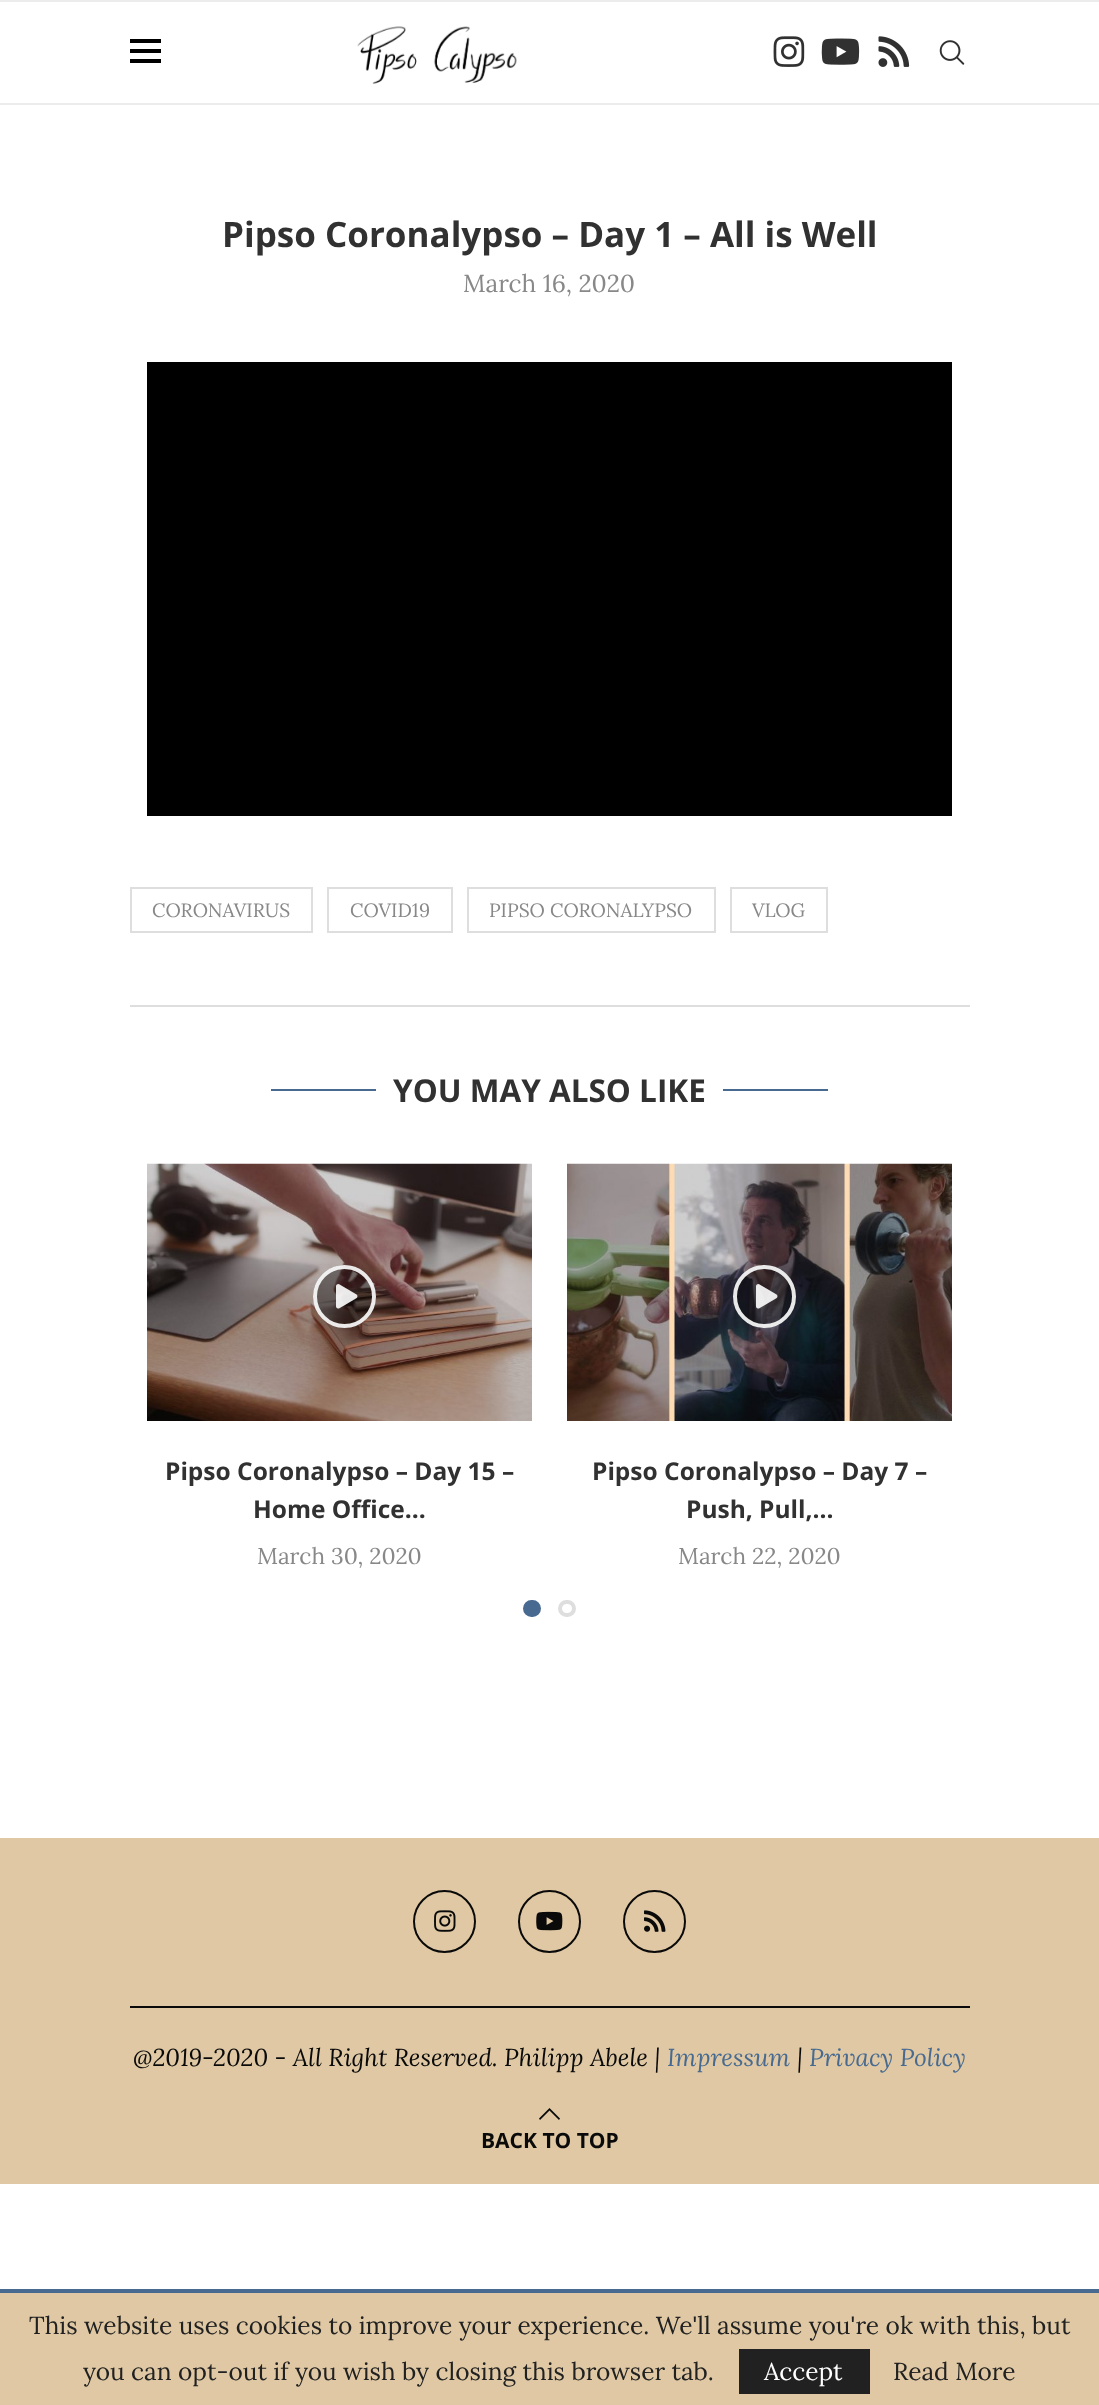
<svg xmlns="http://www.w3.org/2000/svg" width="1099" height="2405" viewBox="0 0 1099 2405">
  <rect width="100%" height="100%" fill="#fff"/>
  <path d="M0 0h1099v2H0z" fill="#ececec"/>
  <path d="M0 103h1099v2H0z" fill="#ececec"/>
  <path d="M130 39h31v4H130z" fill="#000"/>
  <path d="M130 49h31v4H130z" fill="#000"/>
  <path d="M130 59h31v4H130z" fill="#000"/>
  <image x="357" y="26" width="160" height="58" href="img/1.png"/>
  <image x="773" y="36" width="32" height="31" href="img/2.png"/>
  <image x="821" y="38" width="39" height="27" href="img/3.png"/>
  <image x="878" y="36" width="32" height="31" href="img/4.png"/>
  <image x="939" y="40" width="26" height="25" href="img/5.png"/>
  <path d="M147 362h805v454H147z" fill="#000"/>
  <path d="M131 888h181v44H131z" fill="none" stroke="#dedede" stroke-width="2"/>
  <path d="M328 888h124v44H328z" fill="none" stroke="#dedede" stroke-width="2"/>
  <path d="M468 888h247v44H468z" fill="none" stroke="#dedede" stroke-width="2"/>
  <path d="M731 888h96v44H731z" fill="none" stroke="#dedede" stroke-width="2"/>
  <path d="M130 1005h840v2H130z" fill="#dedede"/>
  <path d="M271 1089h105v2H271z" fill="#486a91"/>
  <path d="M723 1089h105v2H723z" fill="#486a91"/>
  <image x="147" y="1163" width="385" height="258" href="img/6.png"/>
  <circle cx="344.5" cy="1296.5" r="31.5" fill="#00000066"/>
  <circle cx="344.5" cy="1296.5" r="29.5" fill="none" stroke="#ffffffe6" stroke-width="4"/>
  <image x="336" y="1284" width="22" height="25" href="img/7.png"/>
  <image x="567" y="1163" width="385" height="258" href="img/8.png"/>
  <circle cx="764.5" cy="1296.5" r="31.5" fill="#00000066"/>
  <circle cx="764.5" cy="1296.5" r="29.5" fill="none" stroke="#ffffffe6" stroke-width="4"/>
  <image x="756" y="1284" width="22" height="25" href="img/9.png"/>
  <rect x="525" y="1602" width="14" height="13" rx="6.5" fill="#486a91" stroke="#486a91" stroke-width="4"/>
  <rect x="560" y="1602" width="14" height="13" rx="6.5" fill="none" stroke="#dedede" stroke-width="4"/>
  <path d="M0 1838h1099v346H0z" fill="#dfc8a3"/>
  <path d="M130 2006h840v2H130z" fill="#0a0a0a"/>
  <circle cx="444.5" cy="1921.5" r="30.5" fill="none" stroke="#0a0a0a" stroke-width="2"/>
  <image x="434" y="1910" width="22" height="22" href="img/10.png"/>
  <circle cx="549.5" cy="1921.5" r="30.5" fill="none" stroke="#0a0a0a" stroke-width="2"/>
  <image x="536" y="1911" width="27" height="20" href="img/11.png"/>
  <circle cx="654.5" cy="1921.5" r="30.5" fill="none" stroke="#0a0a0a" stroke-width="2"/>
  <image x="644" y="1910" width="22" height="22" href="img/12.png"/>
  <path d="M549.5 2108L539 2118.5L540 2120L549.5 2110.5L559 2120L560 2118.5Z" fill="#0a0a0a"/>
  <path d="M0 2293h1099v112H0z" fill="#dfc8a3"/>
  <path d="M0 2289h1099v4H0z" fill="#486a91"/>
  <path d="M739 2349h131v45H739z" fill="#212121"/>
  <text x="222" y="247" font-family="Open Sans" font-size="35" font-weight="bold" fill="#313131">Pipso Coronalypso – Day 1 – All is Well</text>
  <text x="463" y="292" font-family="Lora" font-size="24.5" fill="#888">March 16, 2020</text>
  <g font-family="Lora" font-size="19.25" fill="#888">
    <text x="152" y="917">CORONAVIRUS</text>
    <text x="350" y="917">COVID19</text>
    <text x="489" y="917">PIPSO CORONALYPSO</text>
    <text x="752" y="917">VLOG</text>
  </g>
  <text x="393" y="1102" font-family="Open Sans" font-size="31.5" font-weight="bold" fill="#313131">YOU MAY ALSO LIKE</text>
  <g font-family="Open Sans" font-size="24.5" font-weight="bold" fill="#313131">
    <text x="165" y="1480">Pipso Coronalypso – Day 15 –</text>
    <text x="253" y="1518">Home Office...</text>
  </g>
  <text x="257" y="1564" font-family="Lora" font-size="22.75" fill="#888">March 30, 2020</text>
  <g font-family="Open Sans" font-size="24.5" font-weight="bold" fill="#313131">
    <text x="592" y="1480">Pipso Coronalypso – Day 7 –</text>
    <text x="686" y="1518">Push, Pull,...</text>
  </g>
  <text x="678" y="1564" font-family="Lora" font-size="22.75" fill="#888">March 22, 2020</text>
  <text x="133" y="2066" font-family="Lora" font-size="24.5" font-style="italic" fill="#0a0a0a">@2019-2020 - All Right Reserved. Philipp Abele |</text>
  <text x="667" y="2066" font-family="Lora" font-size="24.5" font-style="italic" fill="#486a91">Impressum</text>
  <text x="797" y="2066" font-family="Lora" font-size="24.5" font-style="italic" fill="#0a0a0a">|</text>
  <text x="809" y="2066" font-family="Lora" font-size="24.5" font-style="italic" fill="#486a91">Privacy Policy</text>
  <text x="481" y="2148" font-family="Open Sans" font-size="21" font-weight="bold" fill="#0a0a0a">BACK TO TOP</text>
  <g font-family="Lora" font-size="24.5" fill="#212121">
    <text x="29" y="2334">This website uses cookies to improve your experience. We'll assume you're ok with this, but</text>
    <text x="83" y="2380">you can opt-out if you wish by closing this browser tab.</text>
  </g>
  <text x="764" y="2380" font-family="Lora" font-size="24.5" fill="#fff">Accept</text>
  <text x="893" y="2380" font-family="Lora" font-size="24.5" fill="#212121">Read More</text>
</svg>
